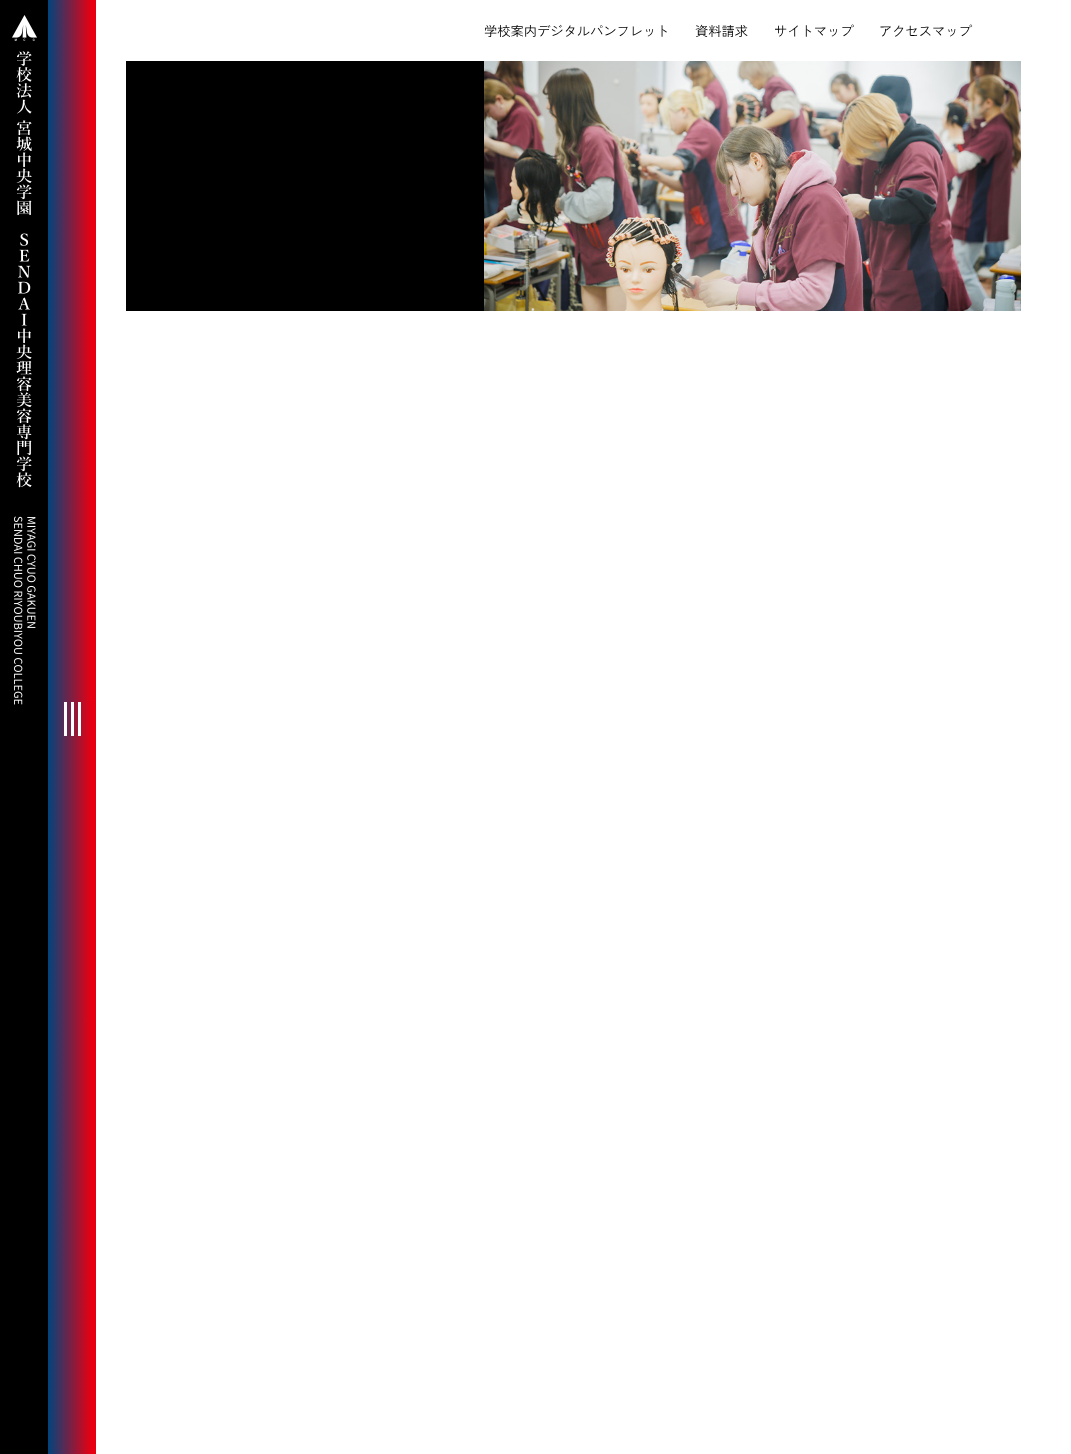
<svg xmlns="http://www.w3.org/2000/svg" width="1071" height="1454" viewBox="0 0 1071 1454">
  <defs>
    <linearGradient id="g1" gradientUnits="userSpaceOnUse" x1="96" y1="727" x2="48" y2="727"><stop offset="0" stop-color="#e70012"/><stop offset="0.1" stop-color="#e70012"/><stop offset="1" stop-color="#00447d"/></linearGradient>
  </defs>
  <rect width="100%" height="100%" fill="#fff"/>
  <path d="M0 0h48v1454H0z" fill="#000"/>
  <image x="12" y="15" width="25" height="690" href="img/1.png"/>
  <path d="M48 0h48v1454H48z" fill="url(#g1)"/>
  <path d="M64 702h3v34H64z" fill="#fff"/>
  <path d="M71 702h3v34H71z" fill="#fff"/>
  <path d="M78 702h3v34H78z" fill="#fff"/>
  <path d="M126 61h358v250H126z" fill="#000"/>
  <image x="484" y="61" width="537" height="250" href="img/2.png"/>
  <g font-family="Zen Kaku Gothic Antique" font-size="13.25" fill="#000">
    <text x="484" y="36">学校案内デジタルパンフレット</text>
    <text x="695" y="36">資料請求</text>
    <text x="774" y="36">サイトマップ</text>
    <text x="879" y="36">アクセスマップ</text>
  </g>
</svg>
